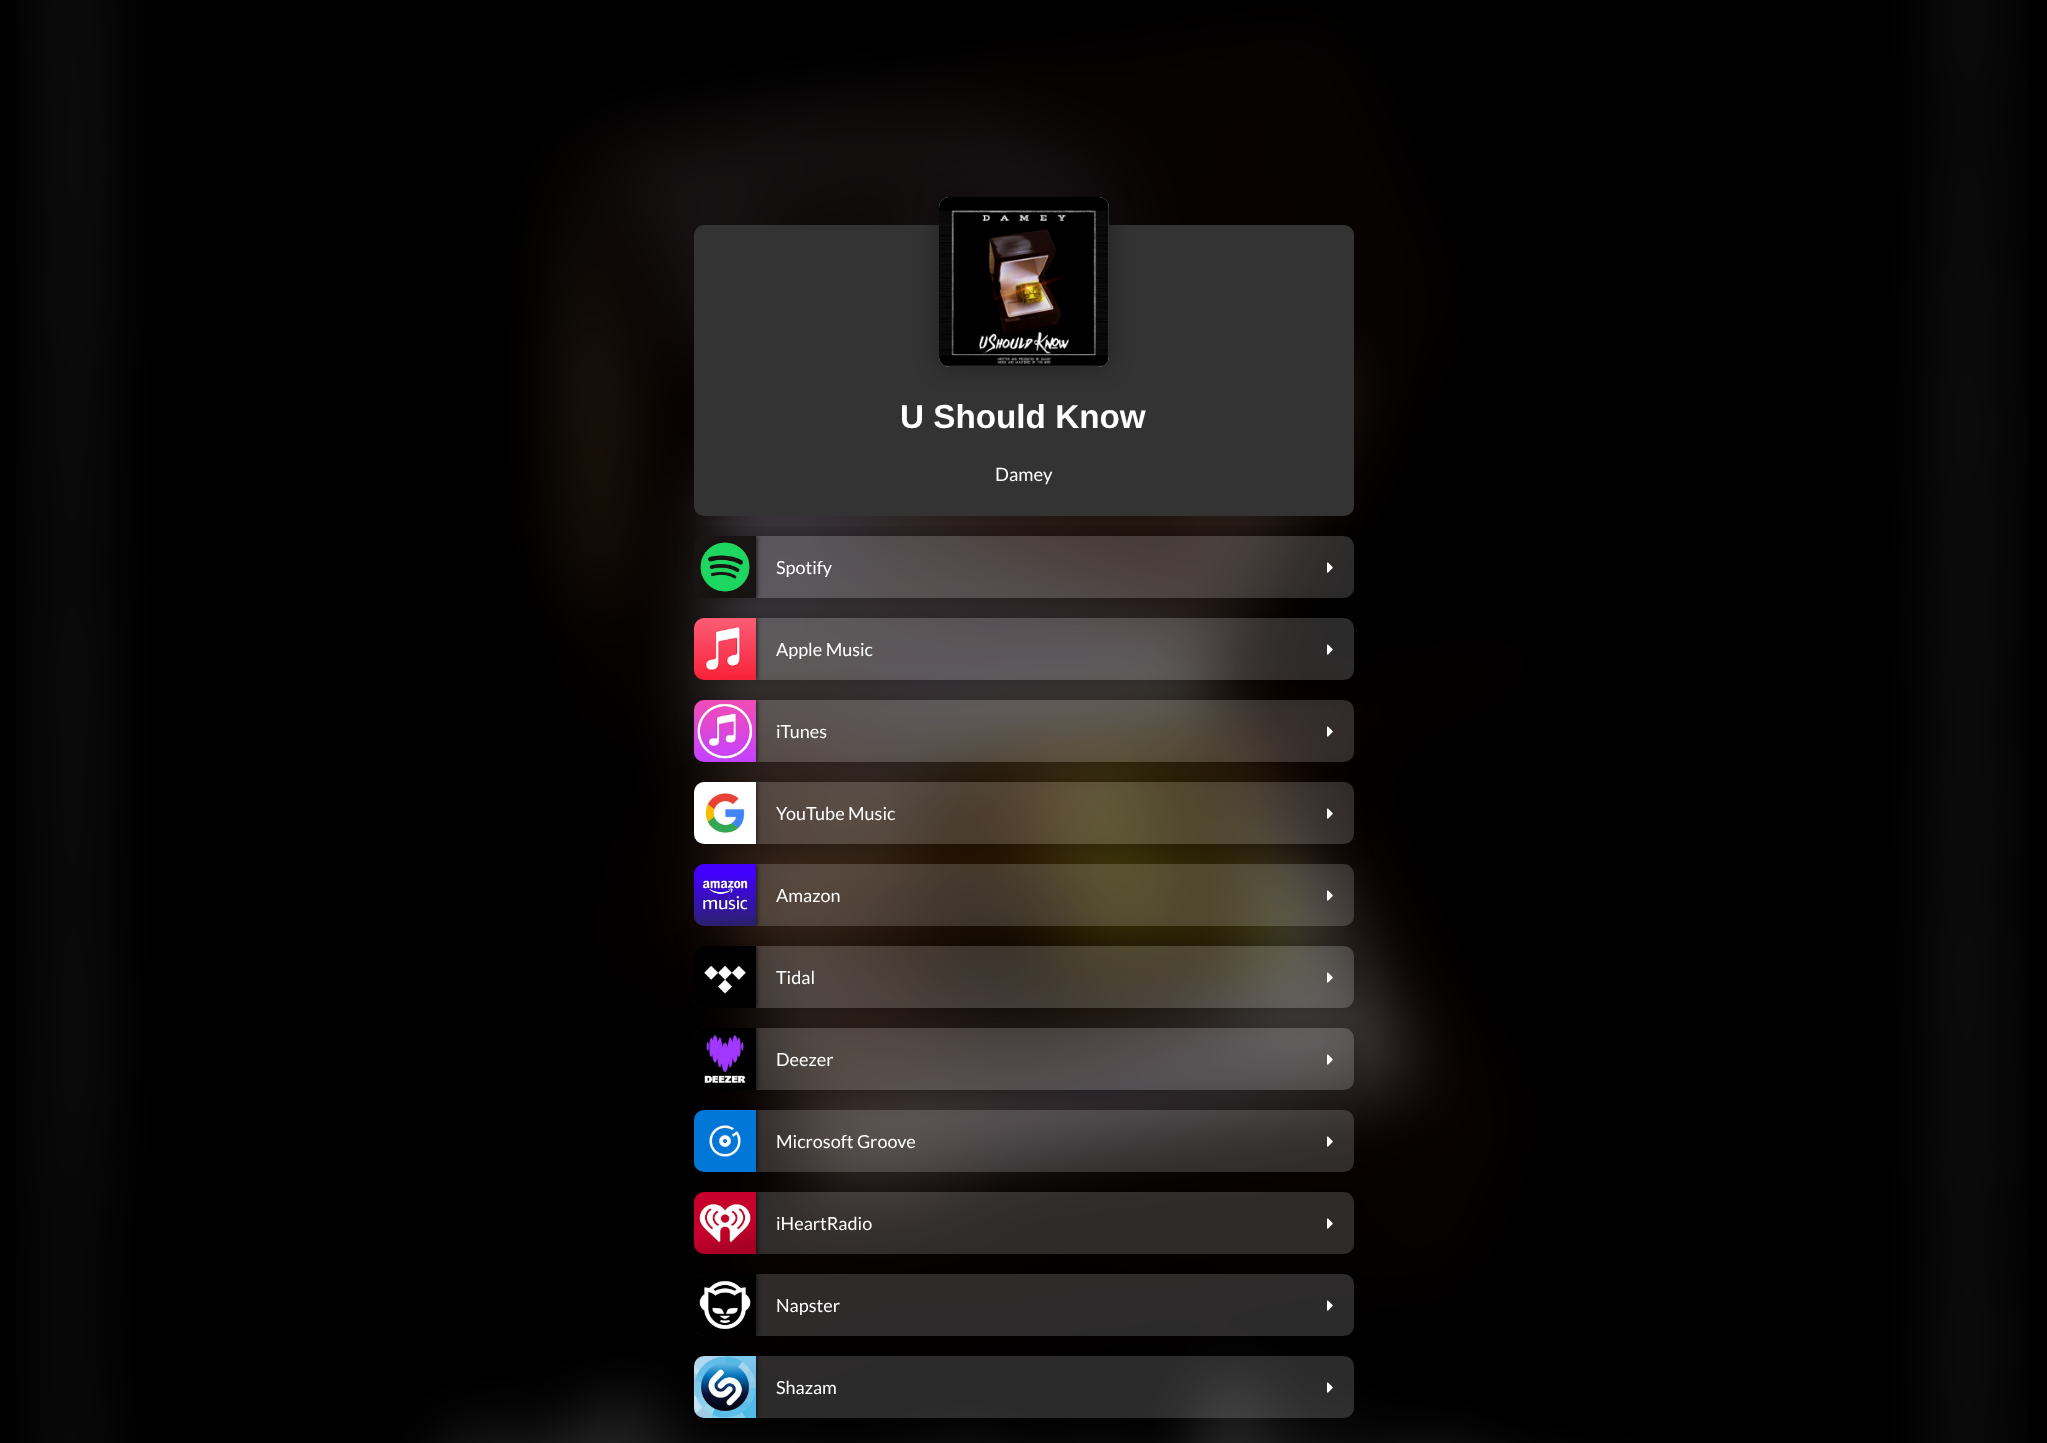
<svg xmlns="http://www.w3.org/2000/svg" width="2047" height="1443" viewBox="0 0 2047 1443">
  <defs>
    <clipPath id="clip1"><path d="M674 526h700v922H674z"/></clipPath>
    <clipPath id="clip2"><path d="M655 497H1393V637H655ZM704 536H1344C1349.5 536 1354 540.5 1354 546V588C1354 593.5 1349.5 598 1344 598H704C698.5 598 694 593.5 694 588V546C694 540.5 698.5 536 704 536Z" clip-rule="evenodd"/></clipPath>
    <clipPath id="clip3"><rect x="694" y="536" width="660" height="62" rx="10"/></clipPath>
    <clipPath id="clip4"><path d="M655 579H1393V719H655ZM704 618H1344C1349.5 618 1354 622.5 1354 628V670C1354 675.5 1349.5 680 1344 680H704C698.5 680 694 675.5 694 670V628C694 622.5 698.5 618 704 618Z" clip-rule="evenodd"/></clipPath>
    <clipPath id="clip5"><rect x="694" y="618" width="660" height="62" rx="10"/></clipPath>
    <clipPath id="clip6"><path d="M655 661H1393V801H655ZM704 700H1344C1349.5 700 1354 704.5 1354 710V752C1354 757.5 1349.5 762 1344 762H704C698.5 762 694 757.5 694 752V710C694 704.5 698.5 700 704 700Z" clip-rule="evenodd"/></clipPath>
    <clipPath id="clip7"><rect x="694" y="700" width="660" height="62" rx="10"/></clipPath>
    <clipPath id="clip8"><path d="M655 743H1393V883H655ZM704 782H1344C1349.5 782 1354 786.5 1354 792V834C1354 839.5 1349.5 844 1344 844H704C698.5 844 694 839.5 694 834V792C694 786.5 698.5 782 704 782Z" clip-rule="evenodd"/></clipPath>
    <clipPath id="clip9"><rect x="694" y="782" width="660" height="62" rx="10"/></clipPath>
    <clipPath id="clip10"><rect x="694" y="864" width="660" height="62" rx="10"/></clipPath>
    <clipPath id="clip11"><path d="M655 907H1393V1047H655ZM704 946H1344C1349.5 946 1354 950.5 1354 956V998C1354 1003.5 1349.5 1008 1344 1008H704C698.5 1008 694 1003.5 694 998V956C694 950.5 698.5 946 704 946Z" clip-rule="evenodd"/></clipPath>
    <clipPath id="clip12"><rect x="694" y="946" width="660" height="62" rx="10"/></clipPath>
    <clipPath id="clip13"><path d="M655 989H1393V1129H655ZM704 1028H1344C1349.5 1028 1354 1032.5 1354 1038V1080C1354 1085.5 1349.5 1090 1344 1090H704C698.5 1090 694 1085.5 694 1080V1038C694 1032.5 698.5 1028 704 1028Z" clip-rule="evenodd"/></clipPath>
    <clipPath id="clip14"><rect x="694" y="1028" width="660" height="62" rx="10"/></clipPath>
    <clipPath id="clip15"><rect x="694" y="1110" width="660" height="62" rx="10"/></clipPath>
    <clipPath id="clip16"><rect x="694" y="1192" width="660" height="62" rx="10"/></clipPath>
    <clipPath id="clip17"><rect x="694" y="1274" width="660" height="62" rx="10"/></clipPath>
    <clipPath id="clip18"><rect x="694" y="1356" width="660" height="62" rx="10"/></clipPath>
  </defs>
  <rect width="100%" height="100%" fill="#000"/>
  <image x="16" y="0" width="2013" height="1443" href="img/1.png"/>
  <g clip-path="url(#clip1)">
    <g clip-path="url(#clip2)">
      <rect x="694" y="536" width="660" height="62" rx="10" fill="#00000059" filter="blur(12.5px)"/>
    </g>
  </g>
  <rect x="694" y="225" width="660" height="291" rx="10" fill="#333"/>
  <rect x="939" y="197" width="170" height="170" rx="10" fill="#00000059" filter="blur(12.5px)"/>
  <rect x="939" y="197" width="170" height="170" rx="10" fill="#ccc"/>
  <image x="939" y="197" width="170" height="170" href="img/2.png"/>
  <rect x="694" y="536" width="660" height="62" rx="10" fill="#ffffff2b"/>
  <g clip-path="url(#clip3)">
    <path d="M694 536h62v62H694z" fill="#000" filter="blur(2.5px)"/>
  </g>
  <image x="694" y="536" width="62" height="62" href="img/3.png"/>
  <image x="1327" y="562" width="6" height="11" href="img/4.png"/>
  <g clip-path="url(#clip1)">
    <g clip-path="url(#clip4)">
      <rect x="694" y="618" width="660" height="62" rx="10" fill="#00000059" filter="blur(12.5px)"/>
    </g>
  </g>
  <rect x="694" y="618" width="660" height="62" rx="10" fill="#ffffff2b"/>
  <g clip-path="url(#clip5)">
    <path d="M694 618h62v62H694z" fill="#000" filter="blur(2.5px)"/>
  </g>
  <image x="694" y="618" width="62" height="62" href="img/5.png"/>
  <image x="1327" y="644" width="6" height="11" href="img/6.png"/>
  <g clip-path="url(#clip1)">
    <g clip-path="url(#clip6)">
      <rect x="694" y="700" width="660" height="62" rx="10" fill="#00000059" filter="blur(12.5px)"/>
    </g>
  </g>
  <rect x="694" y="700" width="660" height="62" rx="10" fill="#ffffff2b"/>
  <g clip-path="url(#clip7)">
    <path d="M694 700h62v62H694z" fill="#000" filter="blur(2.5px)"/>
  </g>
  <image x="694" y="700" width="62" height="62" href="img/7.png"/>
  <image x="1327" y="726" width="6" height="11" href="img/8.png"/>
  <g clip-path="url(#clip1)">
    <g clip-path="url(#clip8)">
      <rect x="694" y="782" width="660" height="62" rx="10" fill="#00000059" filter="blur(12.5px)"/>
    </g>
  </g>
  <rect x="694" y="782" width="660" height="62" rx="10" fill="#ffffff2b"/>
  <g clip-path="url(#clip9)">
    <path d="M694 782h62v62H694z" fill="#000" filter="blur(2.5px)"/>
  </g>
  <image x="694" y="782" width="62" height="62" href="img/9.png"/>
  <image x="1327" y="808" width="6" height="11" href="img/10.png"/>
  <rect x="694" y="864" width="660" height="62" rx="10" fill="#ffffff2b"/>
  <g clip-path="url(#clip10)">
    <path d="M694 864h62v62H694z" fill="#000" filter="blur(2.5px)"/>
  </g>
  <image x="694" y="864" width="62" height="62" href="img/11.png"/>
  <image x="1327" y="890" width="6" height="11" href="img/12.png"/>
  <g clip-path="url(#clip1)">
    <g clip-path="url(#clip11)">
      <rect x="694" y="946" width="660" height="62" rx="10" fill="#00000059" filter="blur(12.5px)"/>
    </g>
  </g>
  <rect x="694" y="946" width="660" height="62" rx="10" fill="#ffffff2b"/>
  <g clip-path="url(#clip12)">
    <path d="M694 946h62v62H694z" fill="#000" filter="blur(2.5px)"/>
  </g>
  <image x="694" y="946" width="62" height="62" href="img/13.png"/>
  <image x="1327" y="972" width="6" height="11" href="img/14.png"/>
  <g clip-path="url(#clip1)">
    <g clip-path="url(#clip13)">
      <rect x="694" y="1028" width="660" height="62" rx="10" fill="#00000059" filter="blur(12.5px)"/>
    </g>
  </g>
  <rect x="694" y="1028" width="660" height="62" rx="10" fill="#ffffff2b"/>
  <g clip-path="url(#clip14)">
    <path d="M694 1028h62v62H694z" fill="#000" filter="blur(2.5px)"/>
  </g>
  <image x="694" y="1028" width="62" height="62" href="img/15.png"/>
  <image x="1327" y="1054" width="6" height="11" href="img/16.png"/>
  <rect x="694" y="1110" width="660" height="62" rx="10" fill="#ffffff2b"/>
  <g clip-path="url(#clip15)">
    <path d="M694 1110h62v62H694z" fill="#000" filter="blur(2.5px)"/>
  </g>
  <image x="694" y="1110" width="62" height="62" href="img/17.png"/>
  <image x="1327" y="1136" width="6" height="11" href="img/18.png"/>
  <rect x="694" y="1192" width="660" height="62" rx="10" fill="#ffffff2b"/>
  <g clip-path="url(#clip16)">
    <path d="M694 1192h62v62H694z" fill="#000" filter="blur(2.5px)"/>
  </g>
  <image x="694" y="1192" width="62" height="62" href="img/19.png"/>
  <image x="1327" y="1218" width="6" height="11" href="img/20.png"/>
  <rect x="694" y="1274" width="660" height="62" rx="10" fill="#ffffff2b"/>
  <g clip-path="url(#clip17)">
    <path d="M694 1274h62v62H694z" fill="#000" filter="blur(2.5px)"/>
  </g>
  <image x="694" y="1274" width="62" height="62" href="img/21.png"/>
  <image x="1327" y="1300" width="6" height="11" href="img/22.png"/>
  <rect x="694" y="1356" width="660" height="62" rx="10" fill="#ffffff2b"/>
  <g clip-path="url(#clip18)">
    <path d="M694 1356h62v62H694z" fill="#000" filter="blur(2.5px)"/>
  </g>
  <image x="694" y="1356" width="62" height="62" href="img/23.png"/>
  <image x="1327" y="1382" width="6" height="11" href="img/24.png"/>
  <text x="900" y="428" font-family="Liberation Sans" font-size="33.25" font-weight="bold" fill="#fff">U Should Know</text>
  <text x="995" y="481" font-family="Lato" font-size="18.5" fill="#fff">Damey</text>
  <g font-family="Lato" font-size="18" fill="#fff">
    <text x="776" y="574">Spotify</text>
    <text x="776" y="656">Apple Music</text>
    <text x="776" y="738">iTunes</text>
    <text x="776" y="820">YouTube Music</text>
    <text x="776" y="902">Amazon</text>
    <text x="776" y="984">Tidal</text>
    <text x="776" y="1066">Deezer</text>
    <text x="776" y="1148">Microsoft Groove</text>
    <text x="776" y="1230">iHeartRadio</text>
    <text x="776" y="1312">Napster</text>
    <text x="776" y="1394">Shazam</text>
  </g>
</svg>
